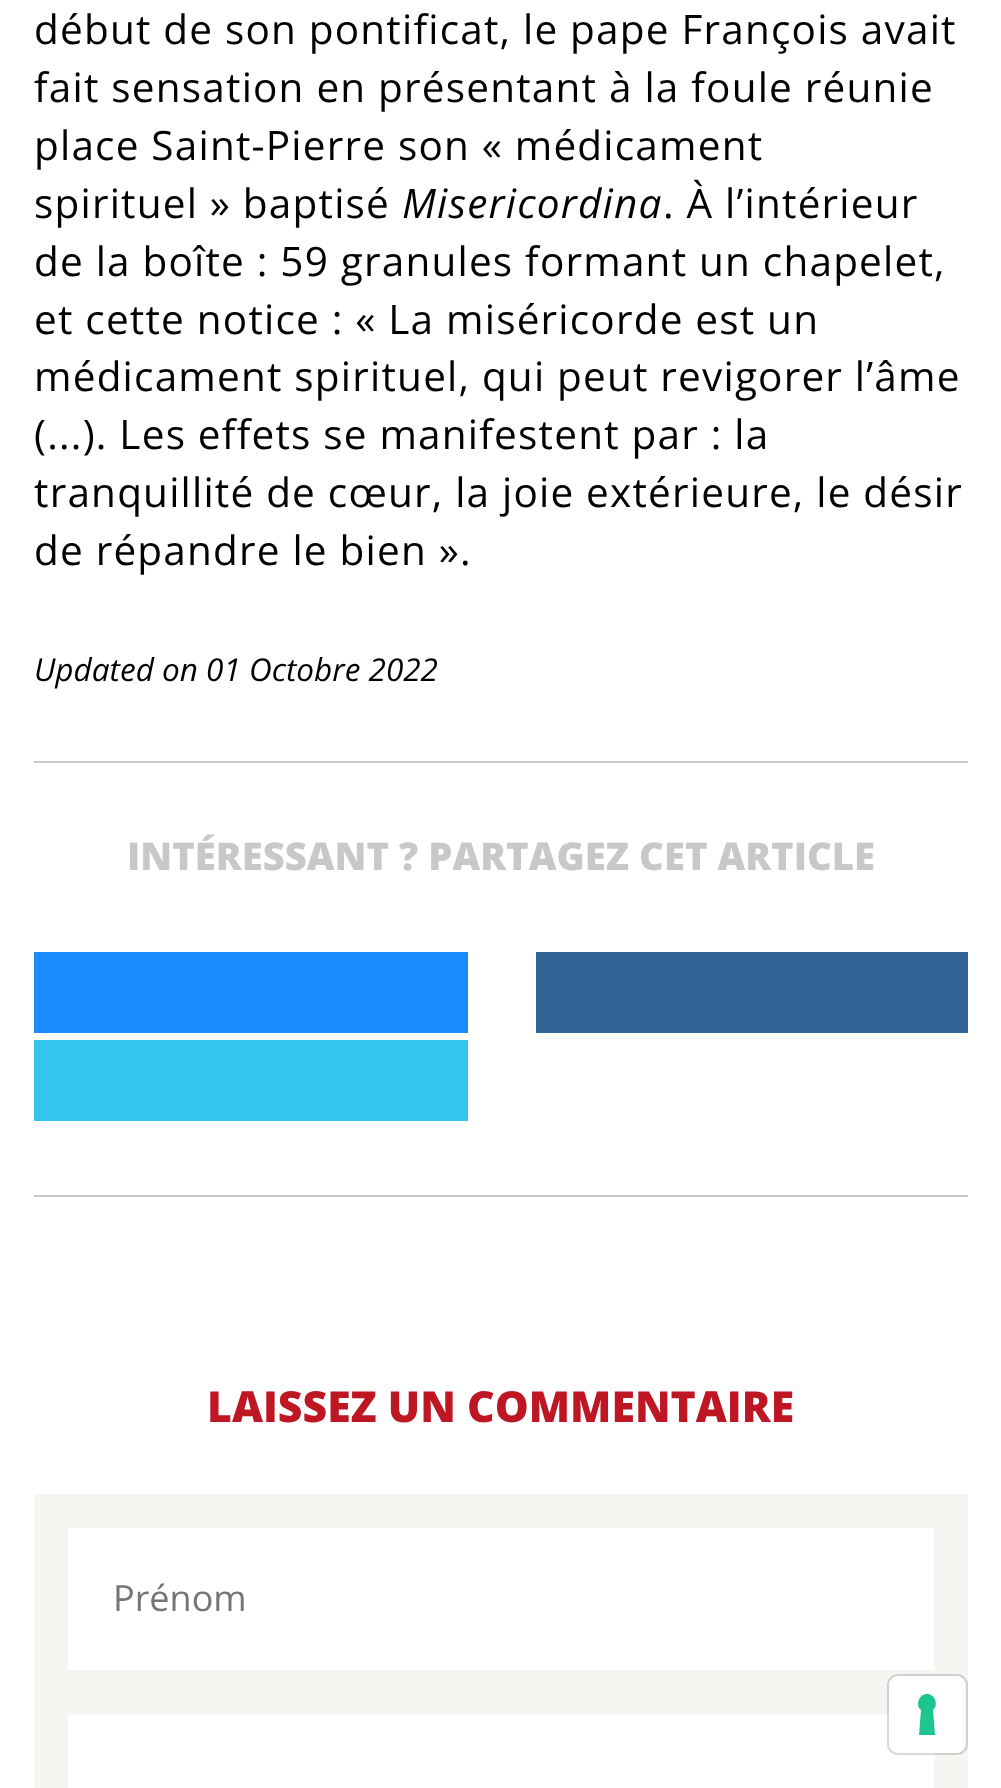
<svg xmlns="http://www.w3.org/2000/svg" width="1001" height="1788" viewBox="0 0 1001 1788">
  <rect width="100%" height="100%" fill="#fff"/>
  <path d="M34 761h934v2H34z" fill="#c8c8c8"/>
  <path d="M34 1195h934v2H34z" fill="#c8c8c8"/>
  <path d="M34 952h434v81H34z" fill="#1c8bfb"/>
  <path d="M536 952h432v81H536z" fill="#336297"/>
  <path d="M34 1040h434v81H34z" fill="#34c5ef"/>
  <path d="M34 1494h934v294H34z" fill="#f5f5f2"/>
  <path d="M68 1528h866v142H68z" fill="#fff"/>
  <path d="M68 1715h866v73H68z" fill="#fff"/>
  <rect x="888" y="1675" width="79" height="79" rx="10" fill="none" stroke="#00000026" stroke-width="2"/>
  <rect x="889" y="1676" width="76" height="77" rx="9" fill="#fff"/>
  <path d="M927 1694C935 1694 939 1705 933 1710L935 1735H919L921 1710C915 1705 919 1694 927 1694Z" fill="#1cc691" fill-rule="evenodd"/>
  <g font-family="Open Sans" font-size="40.5" letter-spacing="1.2" fill="#000">
    <text x="34" y="44">début de son pontificat, le pape François avait</text>
    <text x="34" y="102">fait sensation en présentant à la foule réunie</text>
    <text x="34" y="160">place Saint-Pierre son « médicament</text>
    <text x="34" y="218">spirituel » baptisé</text>
  </g>
  <text x="402" y="218" font-family="Open Sans" font-size="40.5" font-style="italic" letter-spacing="1.2" fill="#000">Misericordina</text>
  <g font-family="Open Sans" font-size="40.5" letter-spacing="1.2" fill="#000">
    <text x="663" y="218">. À l’intérieur</text>
    <text x="34" y="276">de la boîte : 59 granules formant un chapelet,</text>
    <text x="34" y="334">et cette notice : « La miséricorde est un</text>
    <text x="34" y="391">médicament spirituel, qui peut revigorer l’âme</text>
    <text x="34" y="449">(...). Les effets se manifestent par : la</text>
    <text x="34" y="507">tranquillité de cœur, la joie extérieure, le désir</text>
    <text x="34" y="565">de répandre le bien ».</text>
  </g>
  <text x="34" y="681" font-family="Open Sans" font-size="31.5" font-style="italic" fill="#000">Updated on 01 Octobre 2022</text>
  <text x="127" y="870" font-family="Open Sans" font-size="38.25" font-weight="800" fill="#c8c8c8">INTÉRESSANT ? PARTAGEZ CET ARTICLE</text>
  <text x="207" y="1422" font-family="Open Sans" font-size="42.75" font-weight="800" fill="#be1622">LAISSEZ UN COMMENTAIRE</text>
  <text x="113" y="1611" font-family="Open Sans" font-size="36" fill="#757575">Prénom</text>
</svg>
